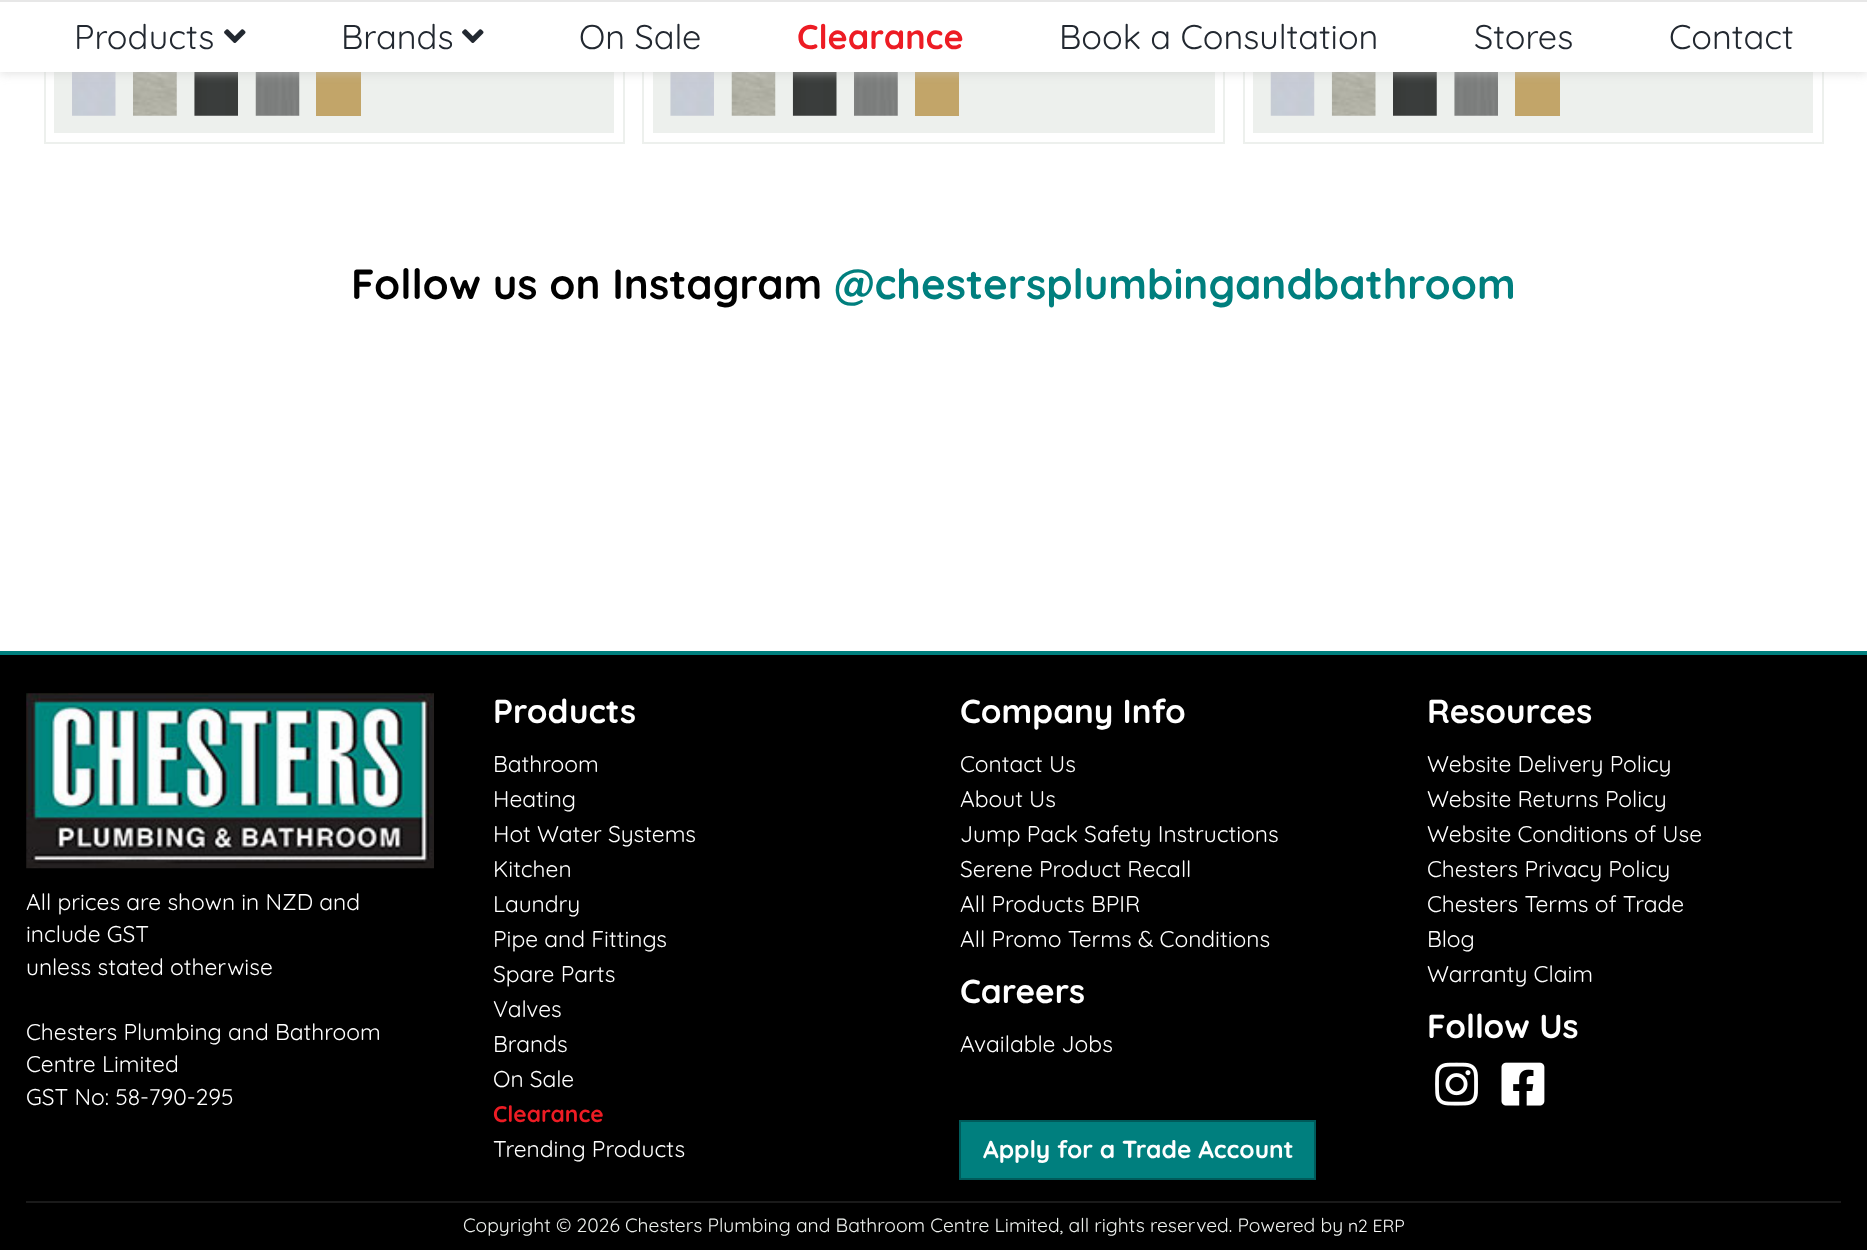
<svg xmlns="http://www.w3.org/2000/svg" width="1867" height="1250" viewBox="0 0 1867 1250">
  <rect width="100%" height="100%" fill="#fff"/>
  <path d="M45 -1h579v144H45z" fill="none" stroke="#edf0ed" stroke-width="2"/>
  <path d="M54 72h560v61H54z" fill="#edf0ed"/>
  <image x="72" y="72" width="44" height="44" href="img/2.png"/>
  <image x="133" y="72" width="44" height="44" href="img/3.png"/>
  <image x="194" y="72" width="44" height="44" href="img/4.png"/>
  <image x="255" y="72" width="45" height="44" href="img/5.png"/>
  <path d="M316 72h45v44H316z" fill="#c2a569"/>
  <path d="M643 -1h581v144H643z" fill="none" stroke="#edf0ed" stroke-width="2"/>
  <path d="M653 72h562v61H653z" fill="#edf0ed"/>
  <image x="670" y="72" width="44" height="44" href="img/6.png"/>
  <image x="731" y="72" width="45" height="44" href="img/7.png"/>
  <image x="792" y="72" width="45" height="44" href="img/8.png"/>
  <image x="854" y="72" width="44" height="44" href="img/9.png"/>
  <path d="M915 72h44v44H915z" fill="#c2a569"/>
  <path d="M1244 -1h579v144H1244z" fill="none" stroke="#edf0ed" stroke-width="2"/>
  <path d="M1253 72h560v61H1253z" fill="#edf0ed"/>
  <image x="1270" y="72" width="45" height="44" href="img/10.png"/>
  <image x="1331" y="72" width="45" height="44" href="img/11.png"/>
  <image x="1393" y="72" width="44" height="44" href="img/12.png"/>
  <image x="1454" y="72" width="44" height="44" href="img/13.png"/>
  <path d="M1515 72h45v44H1515z" fill="#c2a569"/>
  <path d="M0 2h1867v72H0z" fill="#c8c8c880" filter="blur(5px)"/>
  <path d="M0 2h1867v70H0z" fill="#fff"/>
  <path d="M0 0h1867v2H0z" fill="#e7e7e7"/>
  <image x="224" y="29" width="22" height="14" href="img/1.png"/>
  <image x="462" y="29" width="22" height="14" href="img/1.png"/>
  <path d="M0 655h1867v595H0z" fill="#000"/>
  <path d="M0 651h1867v4H0z" fill="#007f7e"/>
  <image x="26" y="693" width="408" height="176" href="img/14.png"/>
  <path d="M960 1121h355v58H960z" fill="#007f7e" stroke="#005b5b" stroke-width="2"/>
  <image x="1435" y="1062" width="43" height="44" href="img/15.png"/>
  <image x="1501" y="1062" width="44" height="44" href="img/16.png"/>
  <path d="M26 1201h1815v2H26z" fill="#1a1a1a"/>
  <g font-family="Quicksand" font-size="34.25" fill="#222830">
    <text x="74" y="49">Products</text>
    <text x="341" y="49">Brands</text>
    <text x="579" y="49">On Sale</text>
  </g>
  <text x="797" y="49" font-family="Quicksand" font-size="34.25" font-weight="bold" fill="#ed1c24">Clearance</text>
  <g font-family="Quicksand" font-size="34.25" fill="#222830">
    <text x="1059" y="49">Book a Consultation</text>
    <text x="1474" y="49">Stores</text>
    <text x="1669" y="49">Contact</text>
  </g>
  <text x="351" y="299" font-family="Quicksand" font-size="42" font-weight="bold" fill="#000">Follow us on Instagram</text>
  <text x="834" y="299" font-family="Quicksand" font-size="42" font-weight="bold" fill="#007f7e">@chestersplumbingandbathroom</text>
  <g font-family="Quicksand" font-size="22.75" fill="#fff">
    <text x="26" y="910">All prices are shown in NZD and</text>
    <text x="26" y="942">include GST</text>
    <text x="26" y="975">unless stated otherwise</text>
    <text x="26" y="1040">Chesters Plumbing and Bathroom</text>
    <text x="26" y="1072">Centre Limited</text>
    <text x="26" y="1105">GST No: 58-790-295</text>
  </g>
  <text x="493" y="723" font-family="Quicksand" font-size="33.25" font-weight="bold" fill="#fff">Products</text>
  <g font-family="Quicksand" font-size="22.75" fill="#fff">
    <text x="493" y="772">Bathroom</text>
    <text x="493" y="807">Heating</text>
    <text x="493" y="842">Hot Water Systems</text>
    <text x="493" y="877">Kitchen</text>
    <text x="493" y="912">Laundry</text>
    <text x="493" y="947">Pipe and Fittings</text>
    <text x="493" y="982">Spare Parts</text>
    <text x="493" y="1017">Valves</text>
    <text x="493" y="1052">Brands</text>
    <text x="493" y="1087">On Sale</text>
  </g>
  <text x="493" y="1122" font-family="Quicksand" font-size="22.75" font-weight="bold" fill="#ed1c24">Clearance</text>
  <text x="493" y="1157" font-family="Quicksand" font-size="22.75" fill="#fff">Trending Products</text>
  <text x="960" y="723" font-family="Quicksand" font-size="33.25" font-weight="bold" fill="#fff">Company Info</text>
  <g font-family="Quicksand" font-size="22.75" fill="#fff">
    <text x="960" y="772">Contact Us</text>
    <text x="960" y="807">About Us</text>
    <text x="960" y="842">Jump Pack Safety Instructions</text>
    <text x="960" y="877">Serene Product Recall</text>
    <text x="960" y="912">All Products BPIR</text>
    <text x="960" y="947">All Promo Terms &amp; Conditions</text>
  </g>
  <text x="960" y="1003" font-family="Quicksand" font-size="33.25" font-weight="bold" fill="#fff">Careers</text>
  <text x="960" y="1052" font-family="Quicksand" font-size="22.75" fill="#fff">Available Jobs</text>
  <text x="983" y="1158" font-family="Quicksand" font-size="24.5" font-weight="bold" fill="#fff">Apply for a Trade Account</text>
  <text x="1427" y="723" font-family="Quicksand" font-size="33.25" font-weight="bold" fill="#fff">Resources</text>
  <g font-family="Quicksand" font-size="22.75" fill="#fff">
    <text x="1427" y="772">Website Delivery Policy</text>
    <text x="1427" y="807">Website Returns Policy</text>
    <text x="1427" y="842">Website Conditions of Use</text>
    <text x="1427" y="877">Chesters Privacy Policy</text>
    <text x="1427" y="912">Chesters Terms of Trade</text>
    <text x="1427" y="947">Blog</text>
    <text x="1427" y="982">Warranty Claim</text>
  </g>
  <text x="1427" y="1038" font-family="Quicksand" font-size="33.25" font-weight="bold" fill="#fff">Follow Us</text>
  <text x="463" y="1232" font-family="Quicksand" font-size="19.25" fill="#edf0ed">Copyright © 2026 Chesters Plumbing and Bathroom Centre Limited, all rights reserved. Powered by</text>
  <text x="1348" y="1232" font-family="Quicksand" font-size="17.5" fill="#fff">n2 ERP</text>
</svg>
